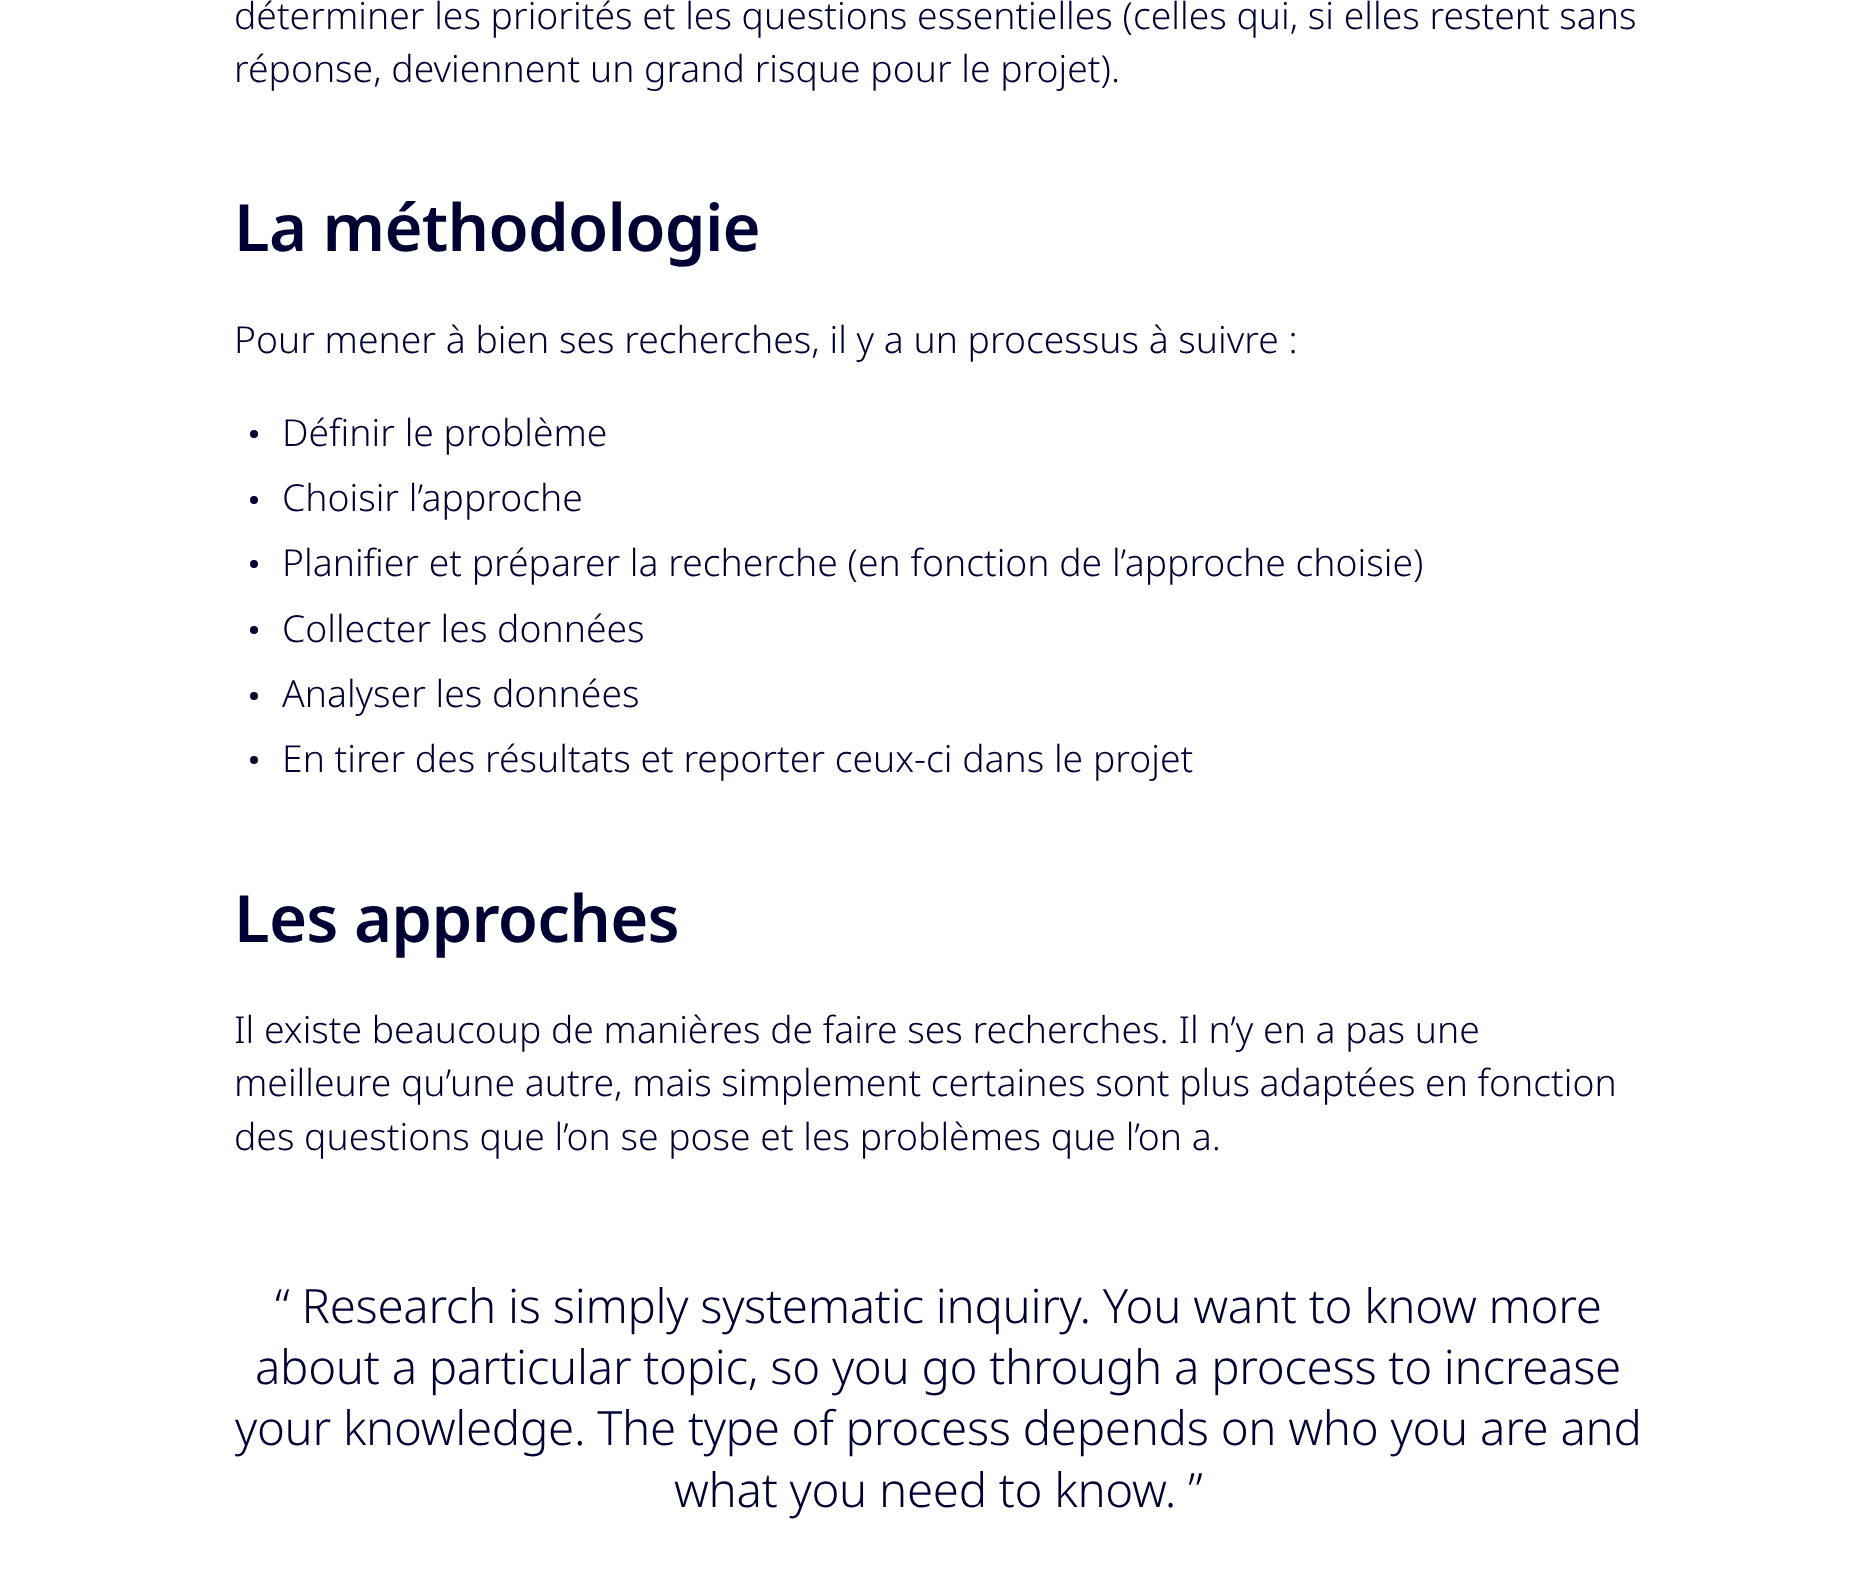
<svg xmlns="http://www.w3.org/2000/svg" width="1876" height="1594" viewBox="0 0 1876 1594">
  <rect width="100%" height="100%" fill="#fff"/>
  <circle cx="254" cy="434" r="4" fill="#000032"/>
  <circle cx="254" cy="500" r="4" fill="#000032"/>
  <circle cx="254" cy="564" r="4" fill="#000032"/>
  <circle cx="254" cy="630" r="4" fill="#000032"/>
  <circle cx="254" cy="696" r="4" fill="#000032"/>
  <circle cx="254" cy="760" r="4" fill="#000032"/>
  <g font-family="Noto Sans" font-size="37.3" font-weight="300" fill="#000032">
    <text x="234" y="29">déterminer les priorités et les questions essentielles (celles qui, si elles restent sans</text>
    <text x="234" y="82">réponse, deviennent un grand risque pour le projet).</text>
  </g>
  <text x="234" y="251" font-family="Noto Sans" font-size="65.25" font-weight="600" letter-spacing="-0.75" fill="#000032">La méthodologie</text>
  <g font-family="Noto Sans" font-size="37.3" font-weight="300" fill="#000032">
    <text x="234" y="353">Pour mener à bien ses recherches, il y a un processus à suivre :</text>
    <text x="282" y="446">Définir le problème</text>
    <text x="282" y="511">Choisir l’approche</text>
    <text x="282" y="576">Planifier et préparer la recherche (en fonction de l’approche choisie)</text>
    <text x="282" y="642">Collecter les données</text>
    <text x="282" y="707">Analyser les données</text>
    <text x="282" y="772">En tirer des résultats et reporter ceux-ci dans le projet</text>
  </g>
  <text x="234" y="942" font-family="Noto Sans" font-size="65.25" font-weight="600" letter-spacing="-0.75" fill="#000032">Les approches</text>
  <g font-family="Noto Sans" font-size="37.3" font-weight="300" fill="#000032">
    <text x="234" y="1043">Il existe beaucoup de manières de faire ses recherches. Il n’y en a pas une</text>
    <text x="234" y="1096" word-spacing="-0.1">meilleure qu’une autre, mais simplement certaines sont plus adaptées en fonction</text>
    <text x="234" y="1150">des questions que l’on se pose et les problèmes que l’on a.</text>
  </g>
  <g font-family="Noto Sans" font-size="47.4" font-weight="300" letter-spacing="-0.3" fill="#000032">
    <text x="275" y="1323">“ Research is simply systematic inquiry. You want to know more</text>
    <text x="255" y="1384">about a particular topic, so you go through a process to increase</text>
    <text x="235" y="1445">your knowledge. The type of process depends on who you are and</text>
    <text x="674" y="1507">what you need to know. ”</text>
  </g>
</svg>
